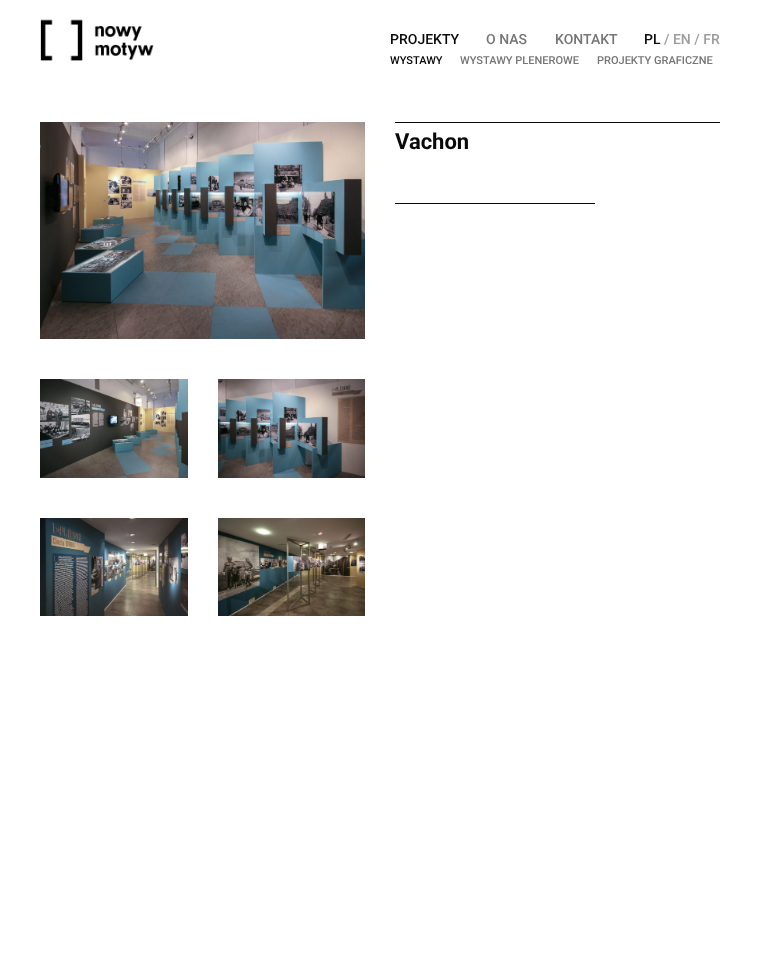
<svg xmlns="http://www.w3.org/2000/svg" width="760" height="960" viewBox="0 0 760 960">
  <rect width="100%" height="100%" fill="#fff"/>
  <image x="40" y="19" width="114" height="42" href="img/1.png"/>
  <image x="40" y="122" width="325" height="217" href="img/2.png"/>
  <image x="40" y="379" width="148" height="99" href="img/3.png"/>
  <image x="218" y="379" width="147" height="99" href="img/4.png"/>
  <image x="40" y="518" width="148" height="98" href="img/5.png"/>
  <image x="218" y="518" width="147" height="98" href="img/6.png"/>
  <path d="M395 122h325v1H395z" fill="#0a0a0a"/>
  <path d="M395 203h200v1H395z" fill="#0a0a0a"/>
  <text x="390" y="44" font-family="Roboto" font-size="14" font-weight="500" fill="#0a0a0a">PROJEKTY</text>
  <text x="390" y="64" font-family="Roboto" font-size="11" font-weight="500" fill="#0a0a0a">WYSTAWY</text>
  <g font-family="Roboto" font-size="11" font-weight="500" fill="#767676">
    <text x="460" y="64">WYSTAWY PLENEROWE</text>
    <text x="597" y="64">PROJEKTY GRAFICZNE</text>
  </g>
  <g font-family="Roboto" font-size="14" font-weight="500" fill="#767676">
    <text x="486" y="44">O NAS</text>
    <text x="555" y="44">KONTAKT</text>
  </g>
  <text x="644" y="44" font-family="Roboto" font-size="14" font-weight="500" fill="#0a0a0a">PL</text>
  <text x="664" y="44" font-family="Roboto" font-size="14" font-weight="500" fill="#9d9d9c">/ EN / FR</text>
  <text x="395" y="149" font-family="Roboto" font-size="22" font-weight="bold" fill="#0a0a0a">Vachon</text>
</svg>
